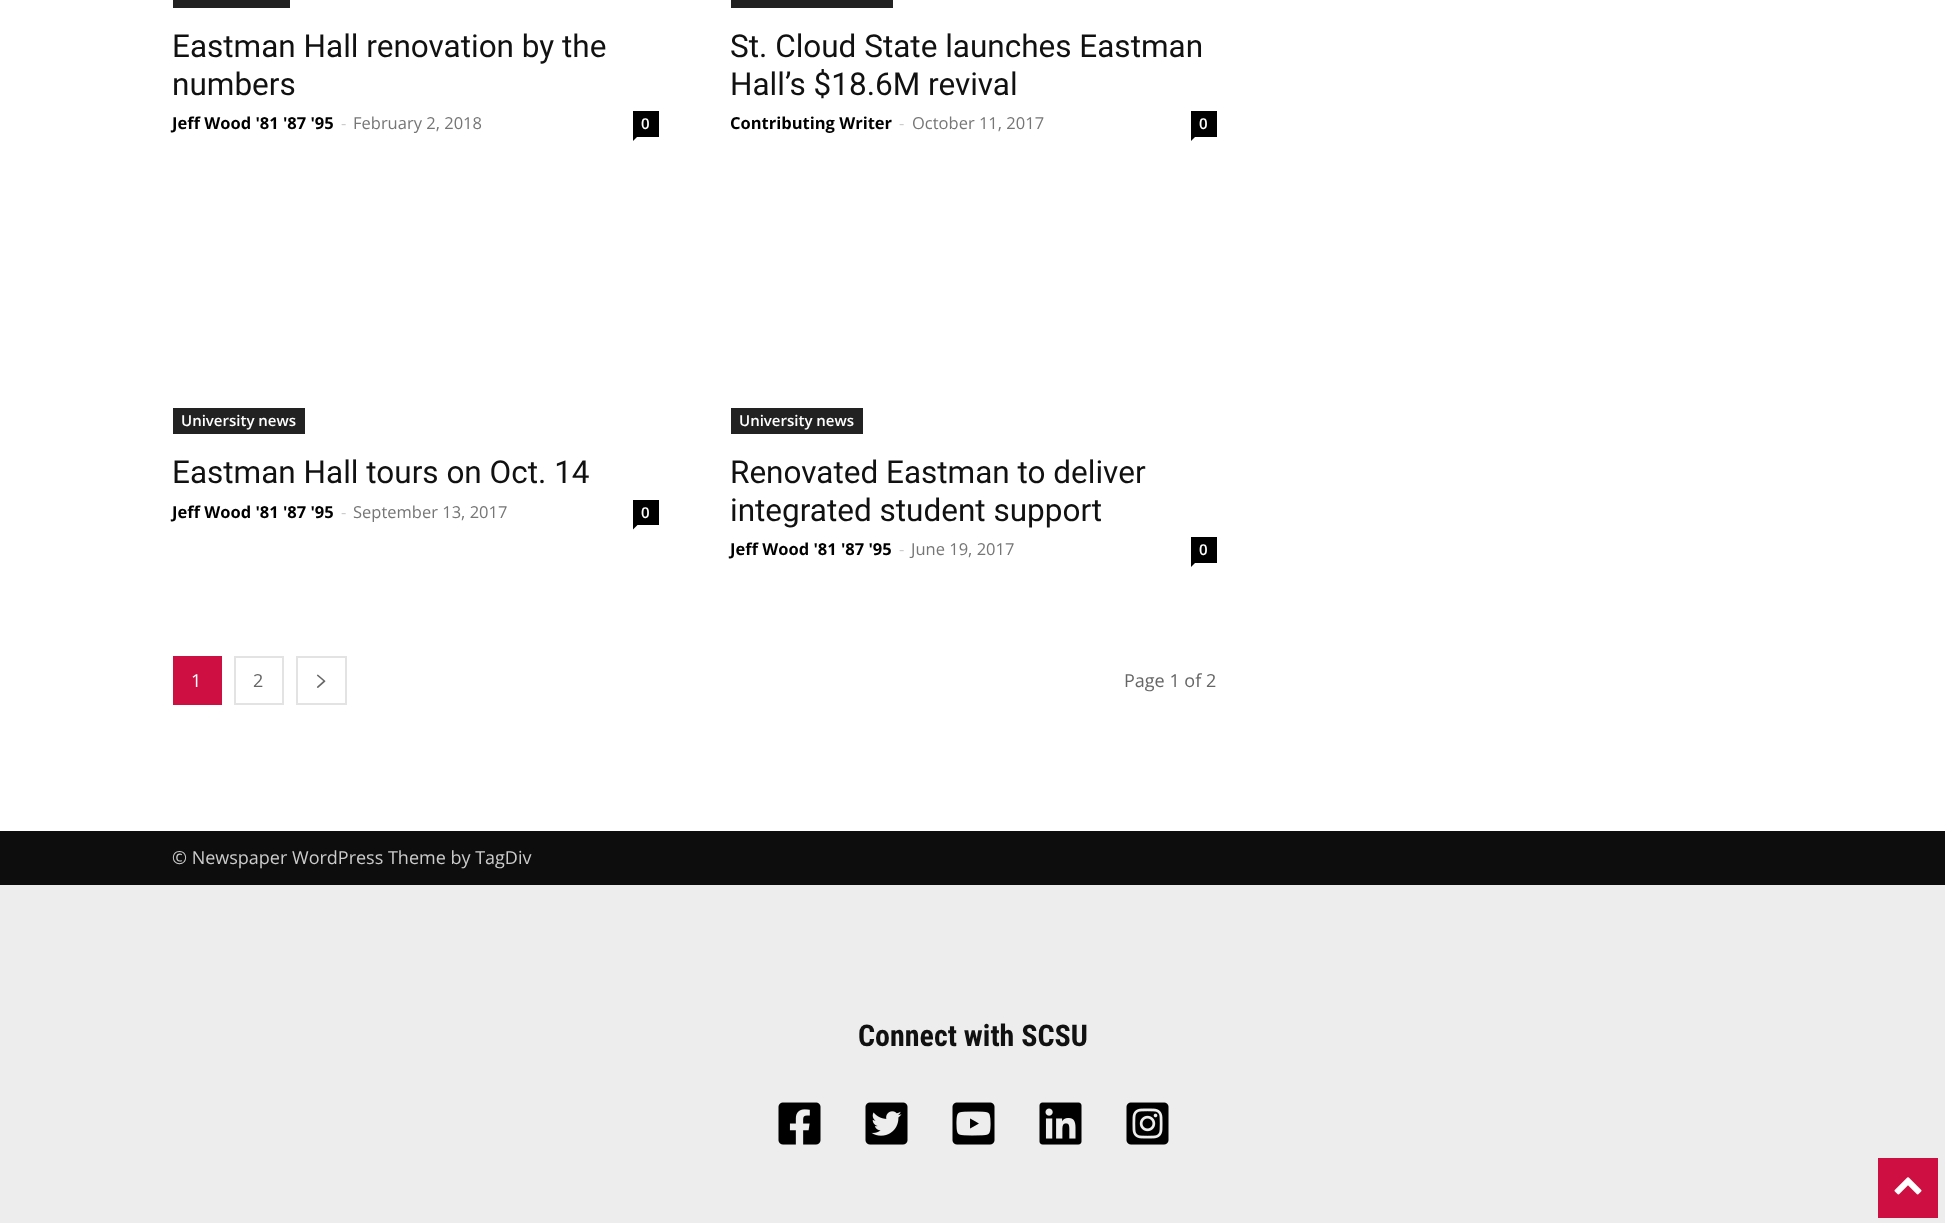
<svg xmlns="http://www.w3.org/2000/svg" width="1945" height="1223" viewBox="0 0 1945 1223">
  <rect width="100%" height="100%" fill="#fff"/>
  <path d="M173 0h117v8H173z" fill="#222"/>
  <path d="M633 111h26v26H633z" fill="#000"/>
  <path d="M633 136.5H637.5L633 141Z" fill="#000"/>
  <path d="M731 0h162v8H731z" fill="#222"/>
  <path d="M1191 111h26v26H1191z" fill="#000"/>
  <path d="M1191 136.5H1195.5L1191 141Z" fill="#000"/>
  <path d="M173 408h132v26H173z" fill="#222"/>
  <path d="M633 500h26v25H633z" fill="#000"/>
  <path d="M633 525H637.5L633 529.5Z" fill="#000"/>
  <path d="M731 408h132v26H731z" fill="#222"/>
  <path d="M1191 537h26v26H1191z" fill="#000"/>
  <path d="M1191 562.5H1195.5L1191 567Z" fill="#000"/>
  <path d="M173 656h49v49H173z" fill="#cd1041"/>
  <path d="M235 657h48v47H235z" fill="none" stroke="#e3e3e3" stroke-width="2"/>
  <path d="M297 657h49v47H297z" fill="none" stroke="#e3e3e3" stroke-width="2"/>
  <image x="316" y="674" width="10" height="14" href="img/1.png"/>
  <path d="M0 831h1945v54H0z" fill="#0d0d0d"/>
  <path d="M0 885h1945v338H0z" fill="#ededed"/>
  <image x="778" y="1102" width="43" height="43" href="img/2.png"/>
  <image x="865" y="1102" width="43" height="43" href="img/3.png"/>
  <image x="952" y="1102" width="43" height="43" href="img/4.png"/>
  <image x="1039" y="1102" width="43" height="43" href="img/5.png"/>
  <image x="1126" y="1102" width="43" height="43" href="img/6.png"/>
  <path d="M1878 1158h60v60H1878z" fill="#cd1041"/>
  <image x="1894" y="1177" width="28" height="18" href="img/7.png"/>
  <g font-family="Roboto" font-size="31.5" fill="#111">
    <text x="172" y="57">Eastman Hall renovation by the</text>
    <text x="172" y="95">numbers</text>
  </g>
  <text x="172" y="129" font-family="Open Sans" font-size="16.5" font-weight="bold" fill="#000">Jeff Wood '81 '87 '95</text>
  <text x="341" y="129" font-family="Open Sans" font-size="16.5" fill="#ccc">-</text>
  <text x="353" y="129" font-family="Open Sans" font-size="16.5" fill="#767676">February 2, 2018</text>
  <text x="641" y="129" font-family="Open Sans" font-size="15" font-weight="600" fill="#fff">0</text>
  <g font-family="Roboto" font-size="31.5" fill="#111">
    <text x="730" y="57">St. Cloud State launches Eastman</text>
    <text x="730" y="95">Hall’s $18.6M revival</text>
  </g>
  <text x="730" y="129" font-family="Open Sans" font-size="16.5" font-weight="bold" fill="#000">Contributing Writer</text>
  <text x="899" y="129" font-family="Open Sans" font-size="16.5" fill="#ccc">-</text>
  <text x="912" y="129" font-family="Open Sans" font-size="16.5" fill="#767676">October 11, 2017</text>
  <g font-family="Open Sans" font-size="15" font-weight="600" fill="#fff">
    <text x="1199" y="129">0</text>
    <text x="181" y="426">University news</text>
  </g>
  <text x="172" y="483" font-family="Roboto" font-size="31.5" fill="#111">Eastman Hall tours on Oct. 14</text>
  <text x="172" y="518" font-family="Open Sans" font-size="16.5" font-weight="bold" fill="#000">Jeff Wood '81 '87 '95</text>
  <text x="341" y="518" font-family="Open Sans" font-size="16.5" fill="#ccc">-</text>
  <text x="353" y="518" font-family="Open Sans" font-size="16.5" fill="#767676">September 13, 2017</text>
  <g font-family="Open Sans" font-size="15" font-weight="600" fill="#fff">
    <text x="641" y="518">0</text>
    <text x="739" y="426">University news</text>
  </g>
  <g font-family="Roboto" font-size="31.5" fill="#111">
    <text x="730" y="483">Renovated Eastman to deliver</text>
    <text x="730" y="521">integrated student support</text>
  </g>
  <text x="730" y="555" font-family="Open Sans" font-size="16.5" font-weight="bold" fill="#000">Jeff Wood '81 '87 '95</text>
  <text x="899" y="555" font-family="Open Sans" font-size="16.5" fill="#ccc">-</text>
  <text x="911" y="555" font-family="Open Sans" font-size="16.5" fill="#767676">June 19, 2017</text>
  <text x="1199" y="555" font-family="Open Sans" font-size="15" font-weight="600" fill="#fff">0</text>
  <text x="191" y="687" font-family="Open Sans" font-size="18" fill="#fff">1</text>
  <g font-family="Open Sans" font-size="18" fill="#666">
    <text x="253" y="687">2</text>
    <text x="1124" y="687">Page 1 of 2</text>
  </g>
  <text x="172" y="864" font-family="Open Sans" font-size="18" fill="#ccc">© Newspaper WordPress Theme by TagDiv</text>
  <text x="858" y="1046" font-family="Roboto Condensed" font-size="30" font-weight="bold" fill="#111">Connect with SCSU</text>
</svg>
